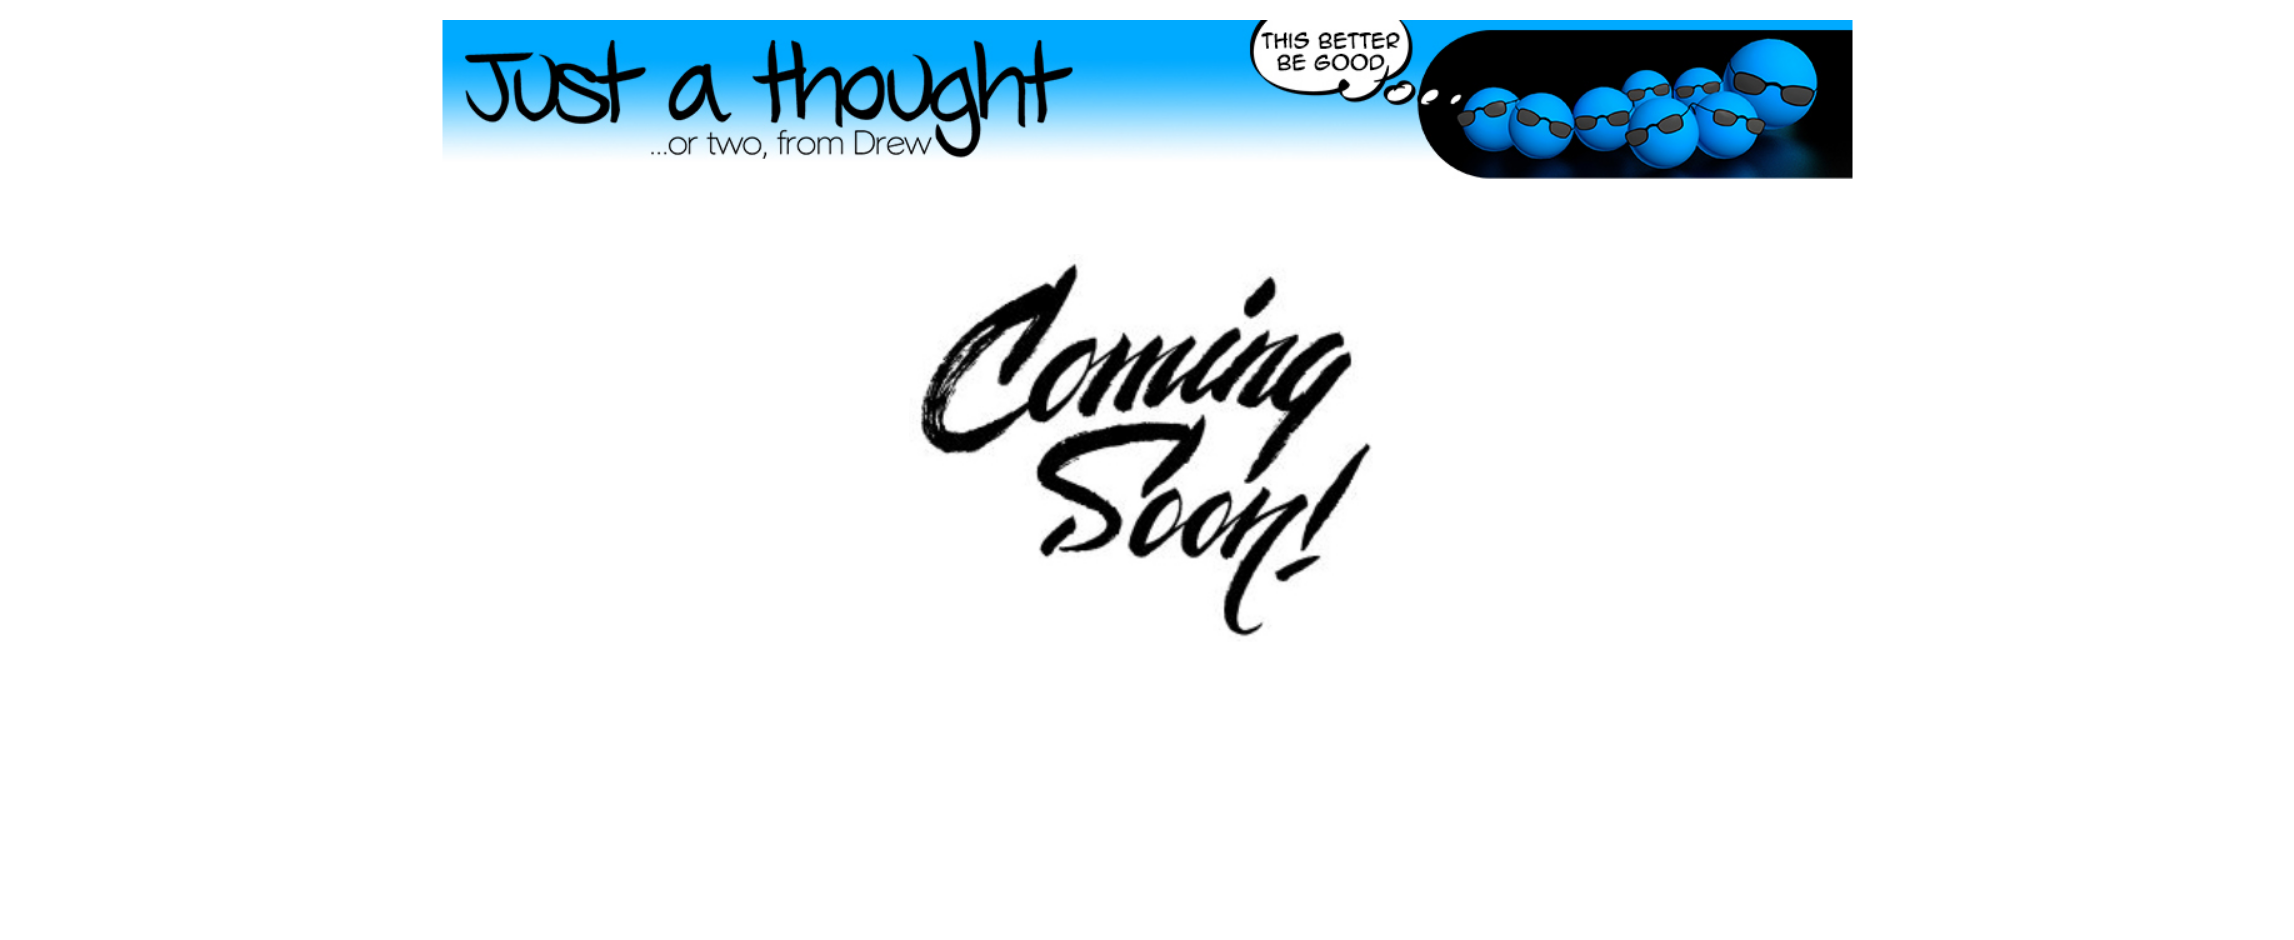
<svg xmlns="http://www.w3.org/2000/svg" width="2294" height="940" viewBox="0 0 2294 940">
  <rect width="100%" height="100%" fill="#fff"/>
  <image x="442" y="20" width="1411" height="159" href="img/1.png"/>
  <image x="909" y="254" width="464" height="388" href="img/2.png"/>
</svg>
